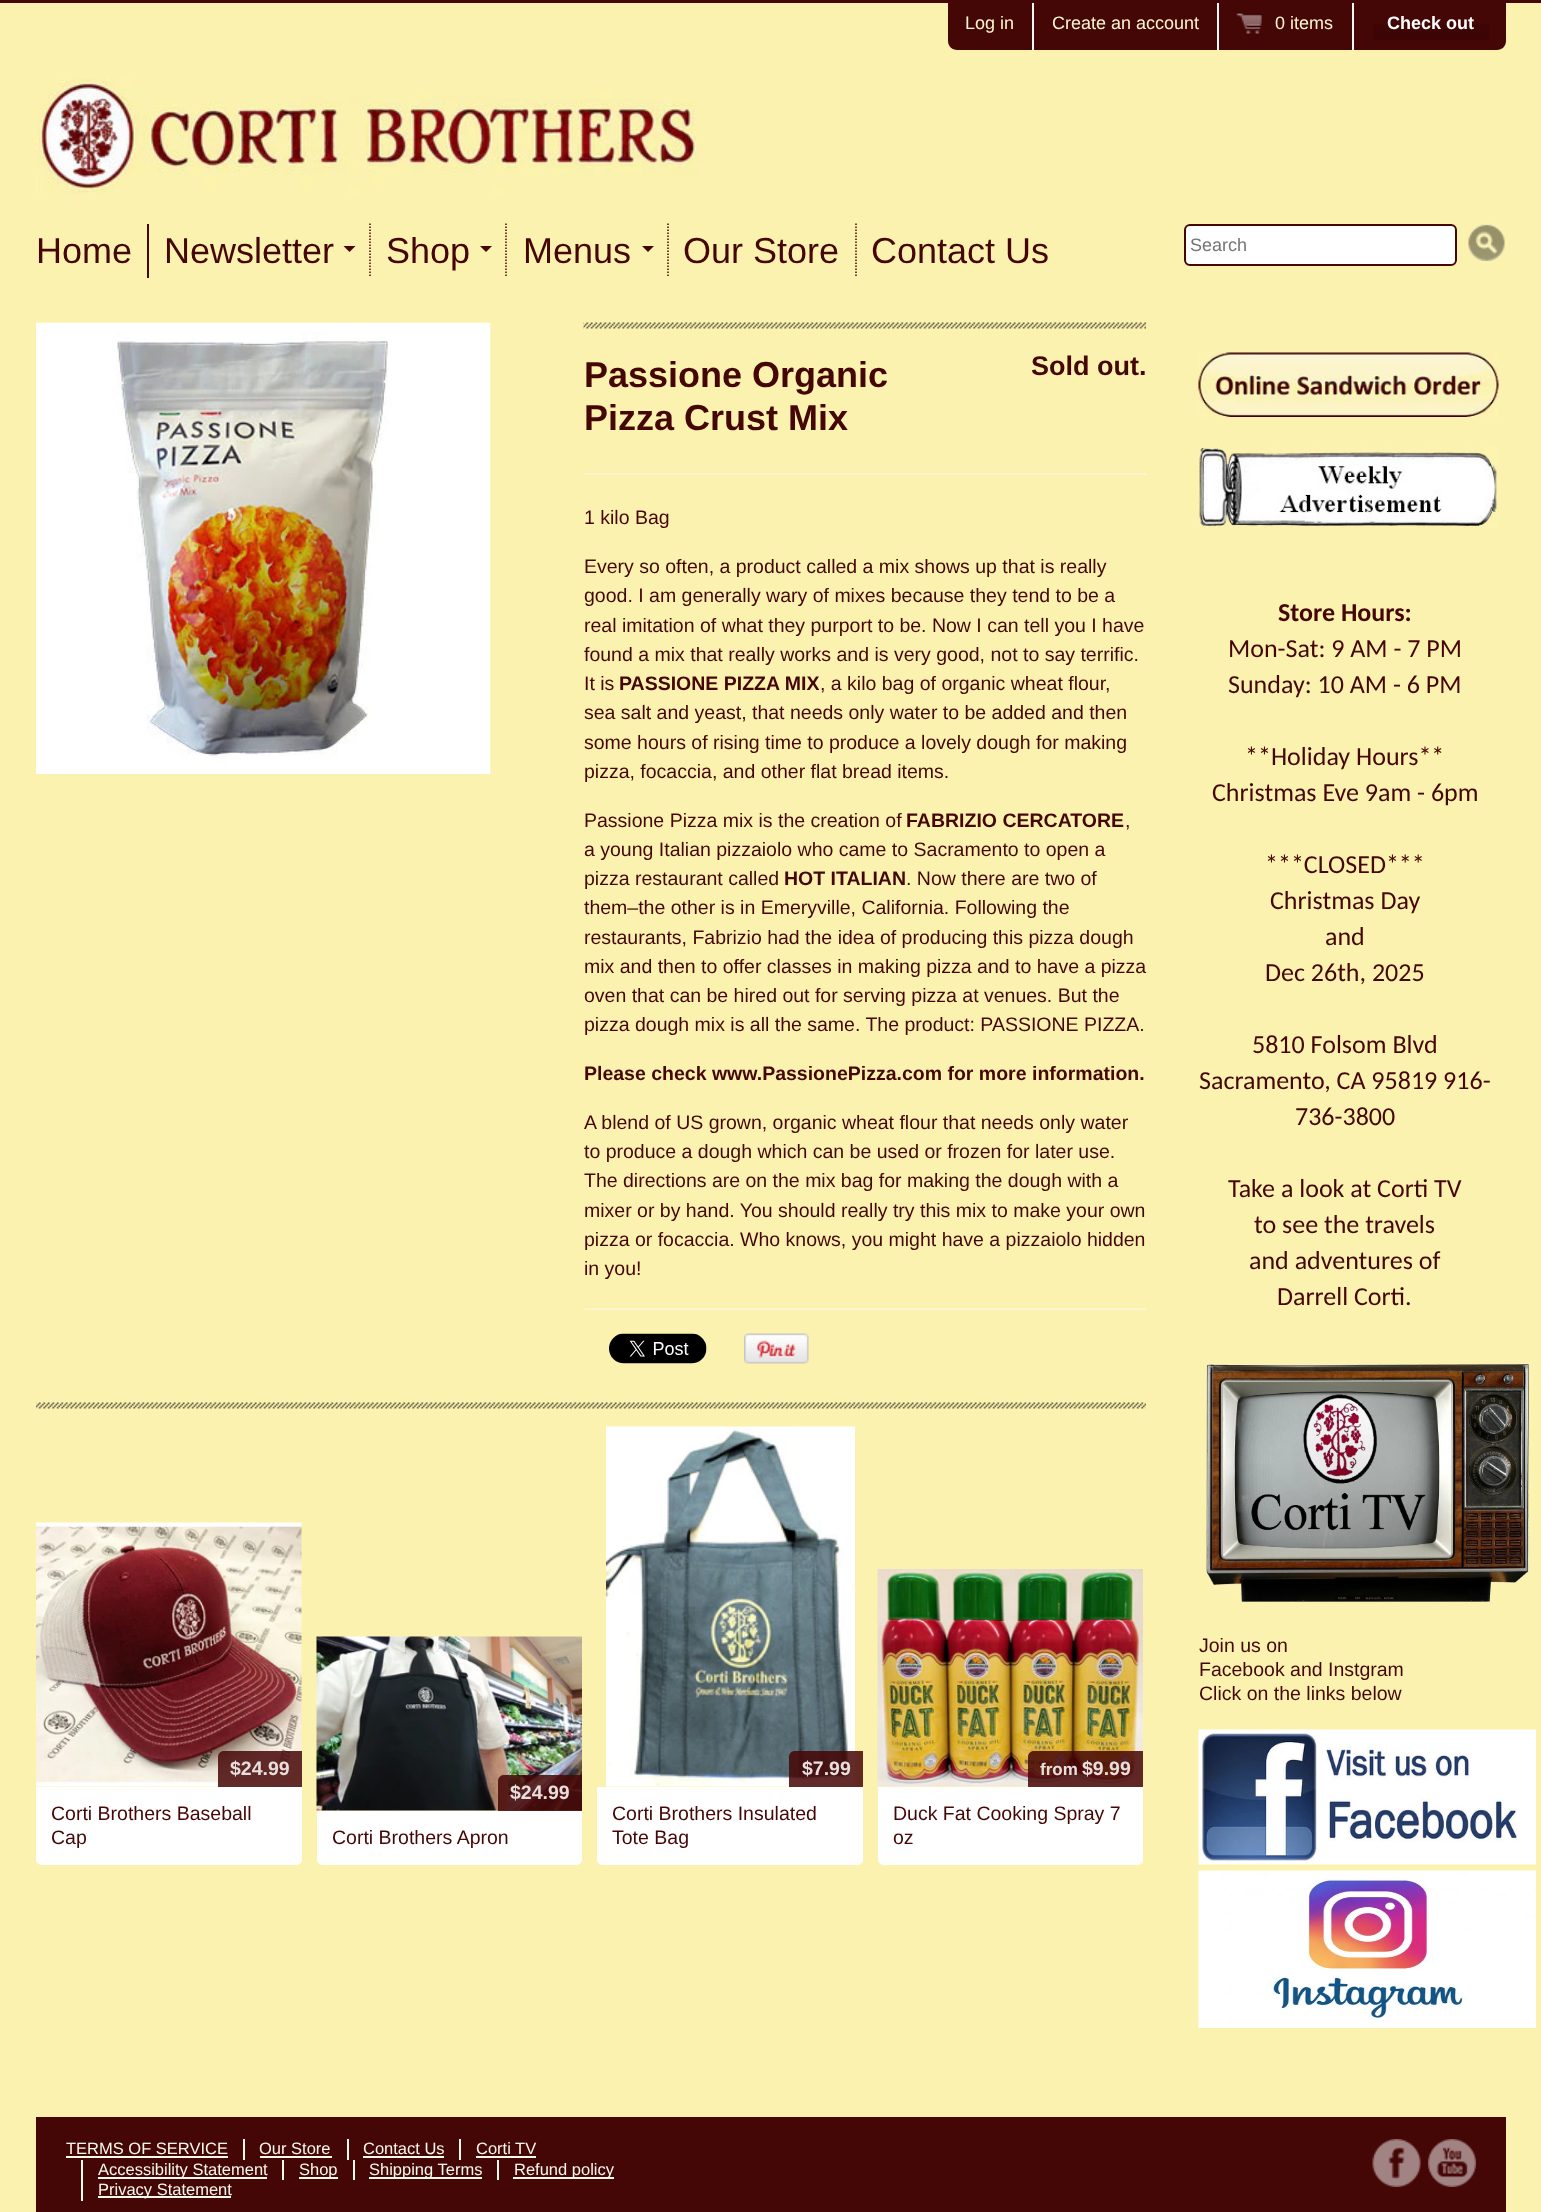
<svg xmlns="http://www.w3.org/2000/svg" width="1541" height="2212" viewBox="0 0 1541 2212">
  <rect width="100%" height="100%" fill="#fcf2b0"/>
  <path d="M0 0h1541v3H0z" fill="#450606"/>
  <path d="M948 3H1506V41C1506 46 1502 50 1497 50H957C952 50 948 46 948 41Z" fill="#450606"/>
  <path d="M1032 3h2v47H1032z" fill="#f7f7f7"/>
  <path d="M1217 3h2v47H1217z" fill="#f7f7f7"/>
  <path d="M1352 3h2v47H1352z" fill="#f7f7f7"/>
  <image x="1236" y="12" width="26" height="22" href="img/1.png"/>
  <image x="1371" y="24" width="120" height="17" href="img/2.png"/>
  <rect x="1372" y="4" width="118" height="37" rx="5" fill="none" stroke="#450606" stroke-width="2"/>
  <image x="36" y="78" width="669" height="117" href="img/3.png"/>
  <path d="M147 224h2v54H147z" fill="#450606"/>
  <path d="M370 223.5V277.5" fill="none" stroke="#450606" stroke-width="1.5" stroke-dasharray="1.5 1.5"/>
  <path d="M343.5 246H355.5L349.5 252Z" fill="#450606"/>
  <path d="M506 223.5V277.5" fill="none" stroke="#450606" stroke-width="1.5" stroke-dasharray="1.5 1.5"/>
  <path d="M480 246H492L486 252Z" fill="#450606"/>
  <path d="M668 223.5V277.5" fill="none" stroke="#450606" stroke-width="1.5" stroke-dasharray="1.5 1.5"/>
  <path d="M642 246H654L648 252Z" fill="#450606"/>
  <path d="M856 223.5V277.5" fill="none" stroke="#450606" stroke-width="1.5" stroke-dasharray="1.5 1.5"/>
  <rect x="1185" y="225" width="271" height="40" rx="5" fill="#fff" stroke="#450606" stroke-width="2"/>
  <image x="1468" y="223" width="37" height="38" href="img/4.png"/>
  <image x="36" y="322" width="455" height="452" href="img/5.png"/>
  <image x="583" y="322" width="563" height="7" href="img/6.png"/>
  <path d="M584 473h562v2H584z" fill="#fcf6cf"/>
  <path d="M584 1308h562v2H584z" fill="#fcf6cf"/>
  <image x="609" y="1333" width="98" height="31" href="img/7.png"/>
  <image x="744" y="1333" width="65" height="31" href="img/8.png"/>
  <image x="36" y="1402" width="1110" height="7" href="img/9.png"/>
  <image x="36" y="1522" width="266" height="265" href="img/10.png"/>
  <path d="M224 1751H302V1787H218V1757C218 1753.5 220.5 1751 224 1751Z" fill="#450606d9"/>
  <path d="M36 1787H302V1859C302 1862.5 299.5 1865 296 1865H42C38.5 1865 36 1862.5 36 1859Z" fill="#fff"/>
  <image x="316" y="1636" width="266" height="175" href="img/11.png"/>
  <path d="M504 1775H582V1811H498V1781C498 1777.5 500.5 1775 504 1775Z" fill="#450606d9"/>
  <path d="M317 1811H582V1859C582 1862.5 579.5 1865 576 1865H323C319.5 1865 317 1862.5 317 1859Z" fill="#fff"/>
  <image x="606" y="1426" width="249" height="361" href="img/12.png"/>
  <path d="M795 1751H863V1787H789V1757C789 1753.5 791.5 1751 795 1751Z" fill="#450606d9"/>
  <path d="M597 1787H863V1859C863 1862.5 860.5 1865 857 1865H603C599.5 1865 597 1862.5 597 1859Z" fill="#fff"/>
  <image x="877" y="1569" width="266" height="218" href="img/13.png"/>
  <path d="M1034 1751H1143V1787H1028V1757C1028 1753.5 1030.5 1751 1034 1751Z" fill="#450606d9"/>
  <path d="M878 1787H1143V1859C1143 1862.5 1140.5 1865 1137 1865H884C880.5 1865 878 1862.5 878 1859Z" fill="#fff"/>
  <image x="1198" y="352" width="301" height="65" href="img/14.png"/>
  <image x="1198" y="447" width="300" height="81" href="img/15.png"/>
  <image x="1205" y="1363" width="328" height="240" href="img/16.png"/>
  <image x="1198" y="1729" width="338" height="136" href="img/17.png"/>
  <image x="1198" y="1870" width="338" height="158" href="img/18.png"/>
  <path d="M36 2117h1470v95H36z" fill="#450606"/>
  <path d="M66 2156h162v2H66z" fill="#f6f9ed"/>
  <path d="M243 2139h2v21H243z" fill="#f6f9ed"/>
  <path d="M260 2156h72v2H260z" fill="#f6f9ed"/>
  <path d="M347 2139h2v21H347z" fill="#f6f9ed"/>
  <path d="M363 2156h81v2H363z" fill="#f6f9ed"/>
  <path d="M459 2139h2v21H459z" fill="#f6f9ed"/>
  <path d="M476 2156h60v2H476z" fill="#f6f9ed"/>
  <path d="M81 2160h2v41H81z" fill="#f6f9ed"/>
  <path d="M98 2177h169v2H98z" fill="#f6f9ed"/>
  <path d="M282 2160h2v20H282z" fill="#f6f9ed"/>
  <path d="M299 2177h39v2H299z" fill="#f6f9ed"/>
  <path d="M353 2160h2v20H353z" fill="#f6f9ed"/>
  <path d="M369 2177h113v2H369z" fill="#f6f9ed"/>
  <path d="M497 2160h2v20H497z" fill="#f6f9ed"/>
  <path d="M513 2177h101v2H513z" fill="#f6f9ed"/>
  <path d="M98 2196h133v2H98z" fill="#f6f9ed"/>
  <image x="1372" y="2139" width="49" height="48" href="img/19.png"/>
  <image x="1428" y="2139" width="48" height="48" href="img/20.png"/>
  <g font-family="Liberation Sans" font-size="18" fill="#fcf6cf">
    <text x="965" y="29">Log in</text>
    <text x="1052" y="29">Create an account</text>
    <text x="1275" y="29">0 items</text>
  </g>
  <text x="1387" y="29" font-family="Liberation Sans" font-size="18" font-weight="bold" fill="#fff">Check out</text>
  <g font-family="Liberation Sans" font-size="36" fill="#450606">
    <text x="36" y="263">Home</text>
    <text x="164" y="263">Newsletter</text>
    <text x="386" y="263">Shop</text>
    <text x="523" y="263">Menus</text>
    <text x="683" y="263">Our Store</text>
    <text x="871" y="263">Contact Us</text>
  </g>
  <text x="1190" y="251" font-family="Liberation Sans" font-size="18" fill="#757575">Search</text>
  <g font-family="Liberation Sans" font-size="36" font-weight="bold" fill="#450606">
    <text x="584" y="387">Passione Organic</text>
    <text x="584" y="430">Pizza Crust Mix</text>
  </g>
  <text x="1031" y="375" font-family="Liberation Sans" font-size="27" font-weight="bold" fill="#450606">Sold out.</text>
  <g font-family="Liberation Sans" font-size="19.5" fill="#450606">
    <text x="584" y="524">1 kilo Bag</text>
    <text x="584" y="573">Every so often, a product called a mix shows up that is really</text>
    <text x="584" y="602">good. I am generally wary of mixes because they tend to be a</text>
    <text x="584" y="632">real imitation of what they purport to be. Now I can tell you I have</text>
    <text x="584" y="661">found a mix that really works and is very good, not to say terrific.</text>
    <text x="584" y="690">It is</text>
  </g>
  <text x="619" y="690" font-family="Liberation Sans" font-size="19.5" font-weight="bold" fill="#450606">PASSIONE PIZZA MIX</text>
  <g font-family="Liberation Sans" font-size="19.5" fill="#450606">
    <text x="820" y="690">, a kilo bag of organic wheat flour,</text>
    <text x="584" y="719">sea salt and yeast, that needs only water to be added and then</text>
    <text x="584" y="749">some hours of rising time to produce a lovely dough for making</text>
    <text x="584" y="778">pizza, focaccia, and other flat bread items.</text>
    <text x="584" y="827">Passione Pizza mix is the creation of</text>
  </g>
  <text x="906" y="827" font-family="Liberation Sans" font-size="19.5" font-weight="bold" fill="#450606">FABRIZIO CERCATORE</text>
  <g font-family="Liberation Sans" font-size="19.5" fill="#450606">
    <text x="1125" y="827">,</text>
    <text x="584" y="856">a young Italian pizzaiolo who came to Sacramento to open a</text>
    <text x="584" y="885">pizza restaurant called</text>
  </g>
  <text x="784" y="885" font-family="Liberation Sans" font-size="19.5" font-weight="bold" fill="#450606">HOT ITALIAN</text>
  <g font-family="Liberation Sans" font-size="19.5" fill="#450606">
    <text x="906" y="885">. Now there are two of</text>
    <text x="584" y="914">them–the other is in Emeryville, California. Following the</text>
    <text x="584" y="944">restaurants, Fabrizio had the idea of producing this pizza dough</text>
    <text x="584" y="973">mix and then to offer classes in making pizza and to have a pizza</text>
    <text x="584" y="1002">oven that can be hired out for serving pizza at venues. But the</text>
    <text x="584" y="1031">pizza dough mix is all the same. The product: PASSIONE PIZZA.</text>
  </g>
  <text x="584" y="1080" font-family="Liberation Sans" font-size="19.5" font-weight="bold" fill="#450606">Please check www.PassionePizza.com for more information.</text>
  <g font-family="Liberation Sans" font-size="19.5" fill="#450606">
    <text x="584" y="1129">A blend of US grown, organic wheat flour that needs only water</text>
    <text x="584" y="1158">to produce a dough which can be used or frozen for later use.</text>
    <text x="584" y="1187">The directions are on the mix bag for making the dough with a</text>
    <text x="584" y="1217">mixer or by hand. You should really try this mix to make your own</text>
    <text x="584" y="1246">pizza or focaccia. Who knows, you might have a pizzaiolo hidden</text>
    <text x="584" y="1275">in you!</text>
  </g>
  <text x="230" y="1775" font-family="Liberation Sans" font-size="19.5" font-weight="bold" fill="#e7dfde">$24.99</text>
  <g font-family="Liberation Sans" font-size="19.5" fill="#450606">
    <text x="51" y="1820">Corti Brothers Baseball</text>
    <text x="51" y="1844">Cap</text>
  </g>
  <text x="510" y="1799" font-family="Liberation Sans" font-size="19.5" font-weight="bold" fill="#e7dfde">$24.99</text>
  <text x="332" y="1844" font-family="Liberation Sans" font-size="19.5" fill="#450606">Corti Brothers Apron</text>
  <text x="802" y="1775" font-family="Liberation Sans" font-size="19.5" font-weight="bold" fill="#e7dfde">$7.99</text>
  <g font-family="Liberation Sans" font-size="19.5" fill="#450606">
    <text x="612" y="1820">Corti Brothers Insulated</text>
    <text x="612" y="1844">Tote Bag</text>
  </g>
  <text x="1040" y="1775" font-family="Liberation Sans" font-size="17" font-weight="bold" fill="#e7dfde">from</text>
  <text x="1082" y="1775" font-family="Liberation Sans" font-size="19.5" font-weight="bold" fill="#e7dfde">$9.99</text>
  <g font-family="Liberation Sans" font-size="19.5" fill="#450606">
    <text x="893" y="1820">Duck Fat Cooking Spray 7</text>
    <text x="893" y="1844">oz</text>
  </g>
  <text x="1278" y="621" font-family="Carlito" font-size="26" font-weight="bold" fill="#450606">Store Hours:</text>
  <g font-family="Carlito" font-size="26" fill="#450606">
    <text x="1228" y="657">Mon-Sat: 9 AM - 7 PM</text>
    <text x="1228" y="693">Sunday: 10 AM - 6 PM</text>
    <text x="1245" y="765">**Holiday Hours**</text>
    <text x="1212" y="801">Christmas Eve 9am - 6pm</text>
    <text x="1265" y="873">***CLOSED***</text>
    <text x="1270" y="909">Christmas Day</text>
    <text x="1325" y="945">and</text>
    <text x="1265" y="981">Dec 26th, 2025</text>
    <text x="1252" y="1053">5810 Folsom Blvd</text>
    <text x="1199" y="1089">Sacramento, CA 95819 916-</text>
    <text x="1295" y="1125">736-3800</text>
    <text x="1228" y="1197">Take a look at Corti TV</text>
    <text x="1254" y="1233">to see the travels</text>
    <text x="1249" y="1269">and adventures of</text>
    <text x="1277" y="1305">Darrell Corti.</text>
  </g>
  <g font-family="Liberation Sans" font-size="19.5" fill="#450606">
    <text x="1199" y="1652">Join us on</text>
    <text x="1199" y="1676">Facebook and Instgram</text>
    <text x="1199" y="1700">Click on the links below</text>
  </g>
  <g font-family="Liberation Sans" font-size="16.5" fill="#f6f9ed">
    <text x="66" y="2154">TERMS OF SERVICE</text>
    <text x="259" y="2154">Our Store</text>
    <text x="363" y="2154">Contact Us</text>
    <text x="476" y="2154">Corti TV</text>
    <text x="98" y="2175">Accessibility Statement</text>
    <text x="299" y="2175">Shop</text>
    <text x="369" y="2175">Shipping Terms</text>
    <text x="514" y="2175">Refund policy</text>
    <text x="98" y="2195">Privacy Statement</text>
  </g>
</svg>
